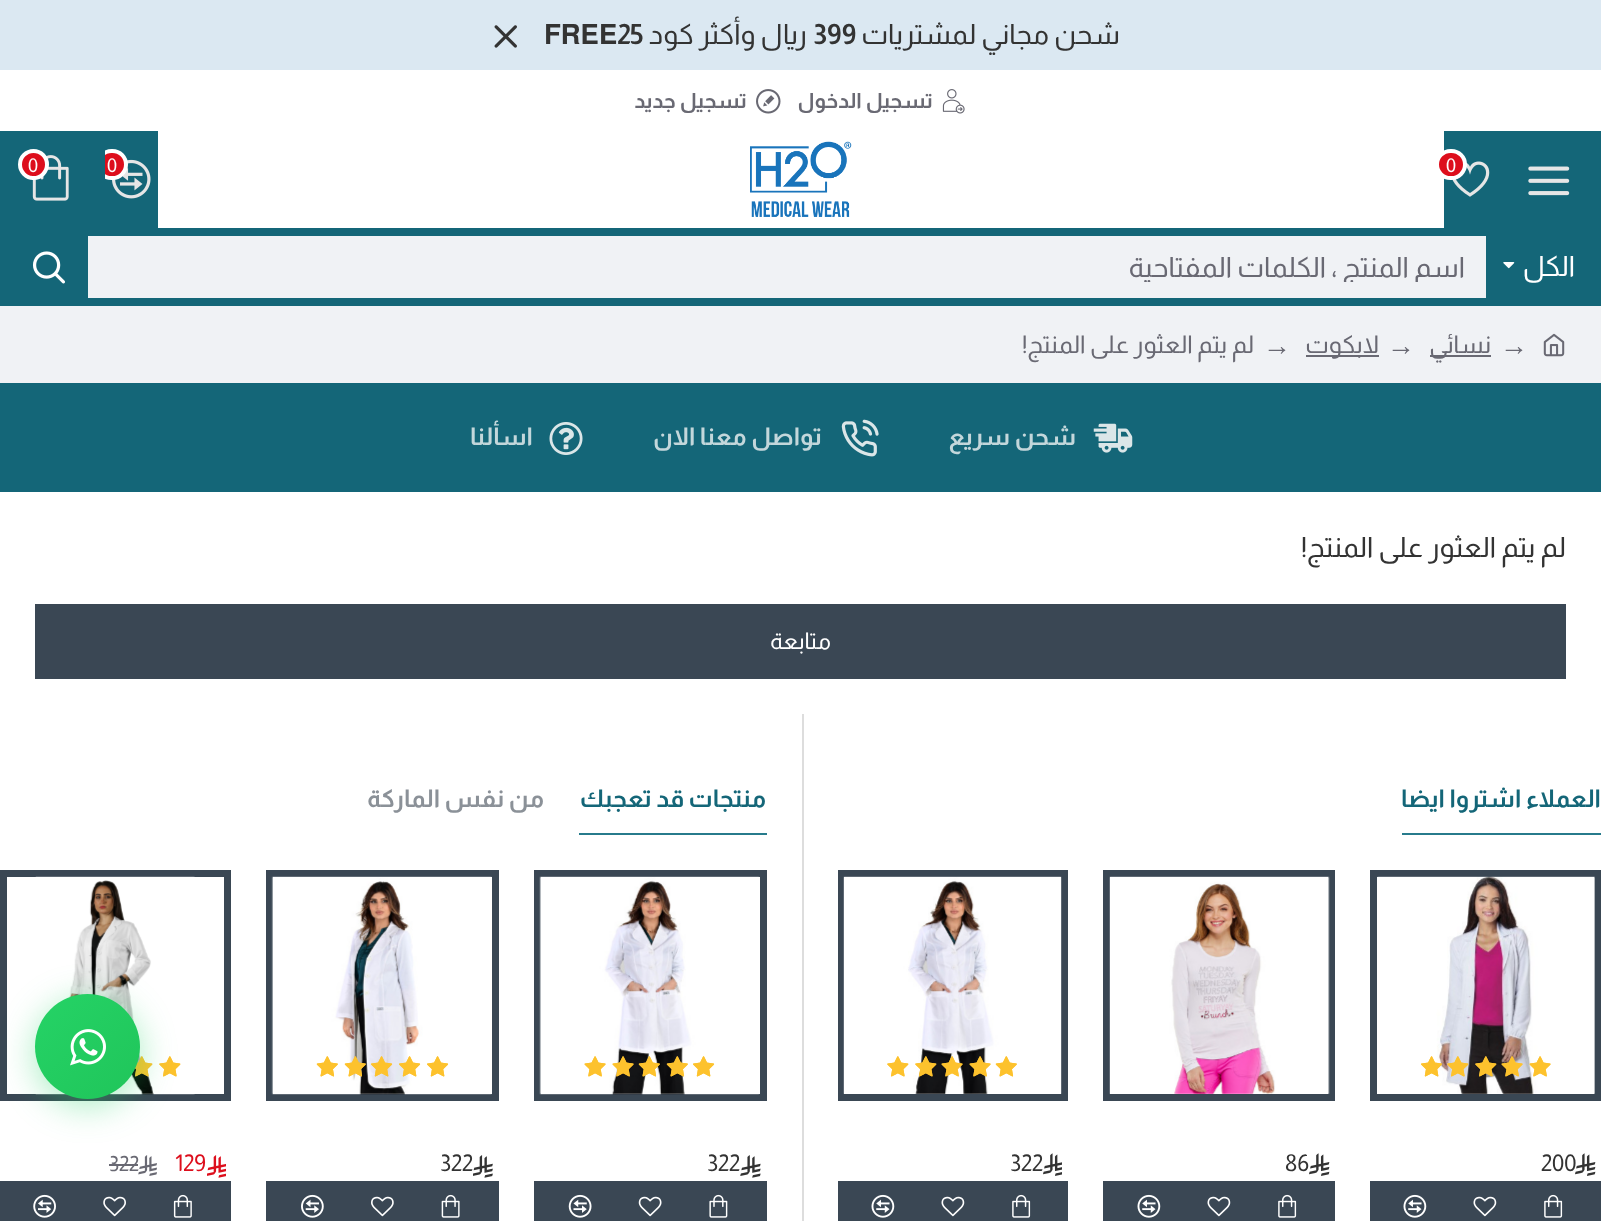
<svg xmlns="http://www.w3.org/2000/svg" width="1601" height="1221" viewBox="0 0 1601 1221">
  <defs>
    <clipPath id="clip1"><path d="M838 870h230v231H838z"/></clipPath>
    <clipPath id="clip2"><path d="M109 252h1356v30H109z"/></clipPath>
    <linearGradient id="g1" gradientUnits="userSpaceOnUse" x1="35" y1="994" x2="140" y2="1099"><stop offset="0" stop-color="#25d366"/><stop offset="1" stop-color="#20c55a"/></linearGradient>
  </defs>
  <rect width="100%" height="100%" fill="#fff"/>
  <path d="M0 0h1601v70H0z" fill="#dbe8f2"/>
  <image x="494" y="25" width="23" height="23" href="img/1.png"/>
  <image x="942" y="89" width="23" height="25" href="img/2.png"/>
  <image x="756" y="89" width="25" height="25" href="img/3.png"/>
  <path d="M105 131h1496v97H105z" fill="#146678"/>
  <image x="1528" y="166" width="42" height="30" href="img/4.png"/>
  <image x="1452" y="161" width="38" height="36" href="img/5.png"/>
  <path d="M158 131h1286v97H158z" fill="#fff"/>
  <rect x="1437" y="151" width="28" height="27" rx="13.5" fill="#dd0e1c" stroke="#fff" stroke-width="4"/>
  <image x="750" y="141" width="102" height="76" href="img/6.png"/>
  <image x="112" y="159" width="39" height="40" href="img/7.png"/>
  <rect x="98" y="151" width="28" height="27" rx="13.5" fill="#dd0e1c" stroke="#fff" stroke-width="4"/>
  <path d="M0 131h105v97H0z" fill="#146678"/>
  <image x="32" y="155" width="37" height="46" href="img/8.png"/>
  <circle cx="33.5" cy="164.5" r="13.5" fill="#dd0e1c" stroke="#fff" stroke-width="4"/>
  <path d="M0 228h1601v78H0z" fill="#146678"/>
  <image x="1503" y="262" width="12" height="7" href="img/9.png"/>
  <path d="M88 236h1398v62H88z" fill="#f0f2f5"/>
  <image x="33" y="251" width="32" height="33" href="img/10.png"/>
  <path d="M0 306h1601v77H0z" fill="#f0f2f5"/>
  <image x="1543" y="333" width="22" height="24" href="img/11.png"/>
  <path d="M1430 355h61v2H1430z" fill="#696973"/>
  <path d="M1306 355h73v2H1306z" fill="#696973"/>
  <path d="M0 383h1601v109H0z" fill="#146678"/>
  <image x="1093" y="423" width="40" height="30" href="img/12.png"/>
  <image x="841" y="419" width="38" height="38" href="img/13.png"/>
  <image x="549" y="422" width="34" height="33" href="img/14.png"/>
  <path d="M35 604h1531v75H35z" fill="#3a4754"/>
  <path d="M802 714h2v507H802z" fill="#ddd"/>
  <path d="M1402 833h199v2H1402z" fill="#277b8c"/>
  <path d="M1373.5 873.5h224v224H1373.5z" fill="none" stroke="#3a4754" stroke-width="7"/>
  <image x="1377" y="876" width="218" height="218" href="img/15.png"/>
  <image x="1529" y="1056" width="22" height="21" href="img/16.png"/>
  <image x="1529" y="1056" width="22" height="21" href="img/17.png"/>
  <image x="1501" y="1056" width="22" height="21" href="img/18.png"/>
  <image x="1501" y="1056" width="22" height="21" href="img/19.png"/>
  <image x="1475" y="1056" width="22" height="21" href="img/20.png"/>
  <image x="1475" y="1056" width="22" height="21" href="img/21.png"/>
  <image x="1447" y="1056" width="22" height="21" href="img/22.png"/>
  <image x="1447" y="1056" width="22" height="21" href="img/23.png"/>
  <image x="1421" y="1056" width="21" height="21" href="img/24.png"/>
  <image x="1421" y="1056" width="21" height="21" href="img/25.png"/>
  <image x="1575" y="1153" width="21" height="23" href="img/26.png"/>
  <path d="M1370 1181h231v40H1370z" fill="#3a4754"/>
  <image x="1544" y="1194" width="19" height="24" href="img/27.png"/>
  <image x="1473" y="1196" width="24" height="21" href="img/28.png"/>
  <image x="1403" y="1194" width="24" height="24" href="img/29.png"/>
  <path d="M1106.5 873.5h225v224H1106.5z" fill="none" stroke="#3a4754" stroke-width="7"/>
  <image x="1109" y="876" width="221" height="218" href="img/30.png"/>
  <image x="1309" y="1153" width="21" height="23" href="img/26.png"/>
  <path d="M1103 1181h232v40H1103z" fill="#3a4754"/>
  <image x="1278" y="1194" width="19" height="24" href="img/27.png"/>
  <image x="1207" y="1196" width="24" height="21" href="img/28.png"/>
  <image x="1137" y="1194" width="24" height="24" href="img/29.png"/>
  <g clip-path="url(#clip1)">
    <path d="M840.5 873.5h224v224H840.5z" fill="none" stroke="#3a4754" stroke-width="7"/>
  </g>
  <image x="843" y="876" width="219" height="218" href="img/31.png"/>
  <image x="995" y="1056" width="22" height="21" href="img/32.png"/>
  <image x="995" y="1056" width="22" height="21" href="img/33.png"/>
  <image x="969" y="1056" width="22" height="21" href="img/34.png"/>
  <image x="969" y="1056" width="22" height="21" href="img/35.png"/>
  <image x="941" y="1056" width="22" height="21" href="img/36.png"/>
  <image x="941" y="1056" width="22" height="21" href="img/37.png"/>
  <image x="915" y="1056" width="22" height="21" href="img/38.png"/>
  <image x="915" y="1056" width="22" height="21" href="img/39.png"/>
  <image x="887" y="1056" width="22" height="21" href="img/40.png"/>
  <image x="887" y="1056" width="22" height="21" href="img/41.png"/>
  <image x="1043" y="1153" width="19" height="23" href="img/42.png"/>
  <path d="M838 1181h230v40H838z" fill="#3a4754"/>
  <image x="1012" y="1194" width="19" height="24" href="img/27.png"/>
  <image x="941" y="1196" width="24" height="21" href="img/28.png"/>
  <image x="871" y="1194" width="24" height="24" href="img/29.png"/>
  <path d="M579 833h188v2H579z" fill="#277b8c"/>
  <path d="M537.5 873.5h226v224H537.5z" fill="none" stroke="#3a4754" stroke-width="7"/>
  <image x="539" y="876" width="221" height="219" href="img/43.png"/>
  <image x="693" y="1056" width="22" height="21" href="img/44.png"/>
  <image x="693" y="1056" width="22" height="21" href="img/45.png"/>
  <image x="666" y="1056" width="22" height="21" href="img/46.png"/>
  <image x="666" y="1056" width="22" height="21" href="img/47.png"/>
  <image x="638" y="1056" width="22" height="21" href="img/48.png"/>
  <image x="638" y="1056" width="22" height="21" href="img/49.png"/>
  <image x="612" y="1056" width="22" height="21" href="img/50.png"/>
  <image x="612" y="1056" width="22" height="21" href="img/51.png"/>
  <image x="584" y="1056" width="22" height="21" href="img/52.png"/>
  <image x="584" y="1056" width="22" height="21" href="img/53.png"/>
  <image x="740" y="1155" width="21" height="23" href="img/54.png"/>
  <path d="M534 1181h233v40H534z" fill="#3a4754"/>
  <image x="709" y="1194" width="19" height="24" href="img/55.png"/>
  <image x="638" y="1196" width="24" height="21" href="img/56.png"/>
  <image x="568" y="1194" width="24" height="24" href="img/57.png"/>
  <path d="M269.5 873.5h226v224H269.5z" fill="none" stroke="#3a4754" stroke-width="7"/>
  <image x="271" y="876" width="221" height="219" href="img/58.png"/>
  <image x="427" y="1056" width="22" height="21" href="img/44.png"/>
  <image x="427" y="1056" width="22" height="21" href="img/45.png"/>
  <image x="399" y="1056" width="22" height="21" href="img/59.png"/>
  <image x="399" y="1056" width="22" height="21" href="img/60.png"/>
  <image x="371" y="1056" width="22" height="21" href="img/61.png"/>
  <image x="371" y="1056" width="22" height="21" href="img/62.png"/>
  <image x="344" y="1056" width="22" height="21" href="img/63.png"/>
  <image x="344" y="1056" width="22" height="21" href="img/64.png"/>
  <image x="316" y="1056" width="22" height="21" href="img/32.png"/>
  <image x="316" y="1056" width="22" height="21" href="img/33.png"/>
  <image x="473" y="1155" width="20" height="23" href="img/65.png"/>
  <path d="M266 1181h233v40H266z" fill="#3a4754"/>
  <image x="441" y="1194" width="19" height="24" href="img/66.png"/>
  <image x="371" y="1196" width="23" height="21" href="img/67.png"/>
  <image x="301" y="1194" width="23" height="24" href="img/68.png"/>
  <path d="M3.5 873.5h224v224H3.5z" fill="none" stroke="#3a4754" stroke-width="7"/>
  <image x="35" y="876" width="160" height="219" href="img/69.png"/>
  <image x="159" y="1056" width="22" height="21" href="img/40.png"/>
  <image x="159" y="1056" width="22" height="21" href="img/41.png"/>
  <image x="135" y="1056" width="18" height="21" href="img/70.png"/>
  <image x="135" y="1056" width="18" height="21" href="img/71.png"/>
  <image x="207" y="1155" width="19" height="23" href="img/72.png"/>
  <path d="M109 1164h29v2H109z" fill="#696973"/>
  <path d="M0 1181h231v40H0z" fill="#3a4754"/>
  <image x="173" y="1194" width="19" height="24" href="img/74.png"/>
  <image x="103" y="1196" width="23" height="21" href="img/75.png"/>
  <image x="33" y="1194" width="23" height="24" href="img/76.png"/>
  <text x="1120" y="44" font-family="Almarai" font-size="28" direction="rtl" fill="#333">شحن مجاني لمشتريات</text>
  <text x="813" y="44" font-family="Almarai" font-size="28" font-weight="bold" fill="#333">399</text>
  <text x="807" y="44" font-family="Almarai" font-size="28" direction="rtl" fill="#333">ريال وأكثر كود</text>
  <text x="544" y="44" font-family="Almarai" font-size="28" font-weight="bold" fill="#333">FREE25</text>
  <g font-family="Almarai" font-size="21" font-weight="bold" direction="rtl" fill="#696973">
    <text x="933" y="108">تسجيل الدخول</text>
    <text x="747" y="108">تسجيل جديد</text>
  </g>
  <g font-family="Almarai" font-size="19" fill="#fff">
    <text x="1446" y="172">0</text>
    <text x="107" y="172">0</text>
    <text x="28" y="172">0</text>
  </g>
  <text x="1575" y="276" font-family="Almarai" font-size="28" direction="rtl" fill="#fff">الكل</text>
  <g clip-path="url(#clip2)">
    <text x="1465" y="277" font-family="Almarai" font-size="28" direction="rtl" fill="#696973">اسم المنتج ، الكلمات المفتاحية</text>
  </g>
  <text x="1500" y="355" font-family="Liberation Serif" font-size="28" fill="#696973">→</text>
  <text x="1491" y="353" font-family="Almarai" font-size="24.5" direction="rtl" fill="#696973">نسائي</text>
  <text x="1387" y="355" font-family="Liberation Serif" font-size="28" fill="#696973">→</text>
  <text x="1379" y="353" font-family="Almarai" font-size="24.5" direction="rtl" fill="#696973">لابكوت</text>
  <text x="1263" y="355" font-family="Liberation Serif" font-size="28" fill="#696973">→</text>
  <text x="1254" y="353" font-family="Almarai" font-size="24.5" direction="rtl" fill="#696973">لم يتم العثور على المنتج!</text>
  <g font-family="Almarai" font-size="24.5" font-weight="bold" direction="rtl" fill="#c3d7db">
    <text x="1076" y="445">شحن سريع</text>
    <text x="822" y="445">تواصل معنا الان</text>
    <text x="533" y="445">اسألنا</text>
  </g>
  <text x="1566" y="557" font-family="Almarai" font-size="28" direction="rtl" fill="#333">لم يتم العثور على المنتج!</text>
  <text x="831" y="649" font-family="Almarai" font-size="23" direction="rtl" fill="#fff">متابعة</text>
  <text x="1601" y="807" font-family="Almarai" font-size="24.5" font-weight="bold" direction="rtl" fill="#146678">العملاء اشتروا ايضا</text>
  <g font-family="Almarai" font-size="23" fill="#333">
    <text x="1541" y="1171">200</text>
    <text x="1285" y="1171">86</text>
    <text x="1010" y="1171">322</text>
  </g>
  <text x="766" y="807" font-family="Almarai" font-size="24.5" font-weight="bold" direction="rtl" fill="#146678">منتجات قد تعجبك</text>
  <text x="544" y="807" font-family="Almarai" font-size="24.5" font-weight="bold" direction="rtl" fill="#8b9198">من نفس الماركة</text>
  <g font-family="Almarai" font-size="23" fill="#333">
    <text x="707" y="1171">322</text>
    <text x="440" y="1171">322</text>
  </g>
  <text x="175" y="1171" font-family="Almarai" font-size="23" fill="#dd0e1c">129</text>
  <text x="109" y="1171" font-family="Almarai" font-size="21" fill="#696973">322</text>
  <image x="138" y="1155" width="19" height="21" href="img/73.png"/>
  <rect x="35" y="1001" width="105" height="105" rx="52.5" fill="#25d36666" filter="blur(17.5px)"/>
  <circle cx="87.5" cy="1046.5" r="52.5" fill="url(#g1)"/>
  <image x="70" y="1029" width="36" height="37" href="img/77.png"/>
</svg>
